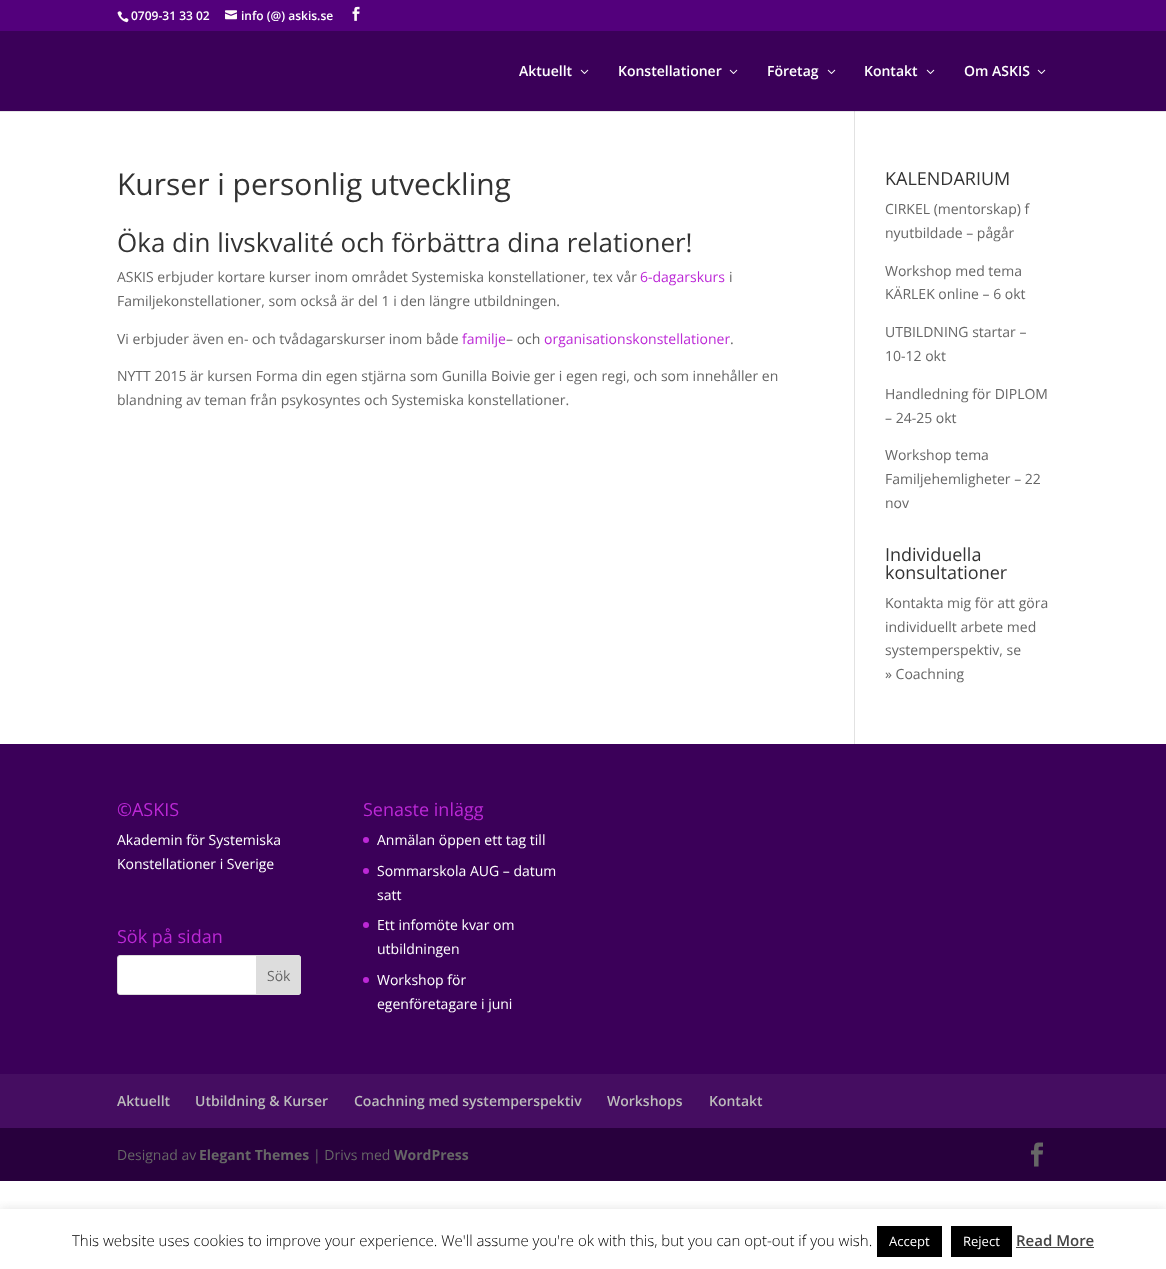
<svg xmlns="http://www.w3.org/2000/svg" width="1166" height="1269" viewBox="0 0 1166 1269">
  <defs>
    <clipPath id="clip1"><path d="M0 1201h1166v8H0z"/></clipPath>
  </defs>
  <rect width="100%" height="100%" fill="#fff"/>
  <path d="M0 111h1166v1H0z" fill="#e6e6e6"/>
  <path d="M0 0h1166v31H0z" fill="#53007c"/>
  <image x="117" y="11" width="12" height="12" href="img/1.png"/>
  <image x="225" y="10" width="12" height="10" href="img/2.png"/>
  <image x="352" y="6" width="8" height="15" href="img/3.png"/>
  <path d="M0 31h1166v80H0z" fill="#3b0059"/>
  <image x="580" y="69" width="9" height="5" href="img/4.png"/>
  <image x="729" y="69" width="9" height="5" href="img/4.png"/>
  <image x="827" y="69" width="9" height="5" href="img/4.png"/>
  <image x="926" y="69" width="9" height="5" href="img/4.png"/>
  <image x="1037" y="69" width="9" height="5" href="img/4.png"/>
  <path d="M854 111h1v633H854z" fill="#e2e2e2"/>
  <path d="M854 111h1v1H854z" fill="#cbcbcb"/>
  <path d="M0 744h1166v330H0z" fill="#3b0059"/>
  <rect x="117.5" y="955.5" width="183" height="39" rx="2.5" fill="#fff" stroke="#ddd"/>
  <path d="M256.5 955.5H298C299.5 955.5 300.5 956.5 300.5 958V992C300.5 993.5 299.5 994.5 298 994.5H256.5Z" fill="#ddd" stroke="#ddd"/>
  <circle cx="366" cy="840" r="3" fill="#bc28d6"/>
  <circle cx="366" cy="871" r="3" fill="#bc28d6"/>
  <circle cx="366" cy="925" r="3" fill="#bc28d6"/>
  <circle cx="366" cy="980" r="3" fill="#bc28d6"/>
  <path d="M0 1074h1166v54H0z" fill="#450d61"/>
  <path d="M0 1128h1166v53H0z" fill="#28003d"/>
  <image x="1031" y="1142" width="12" height="25" href="img/5.png"/>
  <g clip-path="url(#clip1)">
    <path d="M0 1208h1166v60H0z" fill="#acabab4d" filter="blur(5px)"/>
  </g>
  <path d="M877 1226h65v31H877z" fill="#000"/>
  <path d="M951 1226h61v31H951z" fill="#000"/>
  <path d="M1016 1247h78v1H1016z" fill="#444"/>
  <g font-family="Open Sans" font-size="12" font-weight="600" fill="#fff">
    <text x="131" y="20">0709-31 33 02</text>
    <text x="241" y="20">info (@) askis.se</text>
  </g>
  <g font-family="Open Sans" font-size="14" font-weight="600" fill="#fff">
    <text x="519" y="76">Aktuellt</text>
    <text x="618" y="76">Konstellationer</text>
    <text x="767" y="76">Företag</text>
    <text x="864" y="76">Kontakt</text>
    <text x="964" y="76">Om ASKIS</text>
  </g>
  <text x="117" y="195" font-family="Open Sans" font-size="30" fill="#333">Kurser i personlig utveckling</text>
  <text x="117" y="252" font-family="Open Sans" font-size="26" fill="#333">Öka din livskvalité och förbättra dina relationer!</text>
  <text x="117" y="282" font-family="Open Sans" font-size="14" fill="#666">ASKIS erbjuder kortare kurser inom området Systemiska konstellationer, tex vår</text>
  <text x="640" y="282" font-family="Open Sans" font-size="14" fill="#bc28d6">6-dagarskurs</text>
  <g font-family="Open Sans" font-size="14" fill="#666">
    <text x="729" y="282">i</text>
    <text x="117" y="306">Familjekonstellationer, som också är del 1 i den längre utbildningen.</text>
    <text x="117" y="344">Vi erbjuder även en- och tvådagarskurser inom både</text>
  </g>
  <text x="462" y="344" font-family="Open Sans" font-size="14" fill="#bc28d6">familje</text>
  <text x="506" y="344" font-family="Open Sans" font-size="14" fill="#666">– och</text>
  <text x="544" y="344" font-family="Open Sans" font-size="14" fill="#bc28d6">organisationskonstellationer</text>
  <g font-family="Open Sans" font-size="14" fill="#666">
    <text x="730" y="344">.</text>
    <text x="117" y="381">NYTT 2015 är kursen Forma din egen stjärna som Gunilla Boivie ger i egen regi, och som innehåller en</text>
    <text x="117" y="405">blandning av teman från psykosyntes och Systemiska konstellationer.</text>
  </g>
  <text x="885" y="185" font-family="Open Sans" font-size="18" fill="#333">KALENDARIUM</text>
  <g font-family="Open Sans" font-size="14" fill="#666">
    <text x="885" y="214">CIRKEL (mentorskap) f</text>
    <text x="885" y="238">nyutbildade – pågår</text>
    <text x="885" y="276">Workshop med tema</text>
    <text x="885" y="299">KÄRLEK online – 6 okt</text>
    <text x="885" y="337">UTBILDNING startar –</text>
    <text x="885" y="361">10-12 okt</text>
    <text x="885" y="399">Handledning för DIPLOM</text>
    <text x="885" y="423">– 24-25 okt</text>
    <text x="885" y="460">Workshop tema</text>
    <text x="885" y="484">Familjehemligheter – 22</text>
    <text x="885" y="508">nov</text>
  </g>
  <g font-family="Open Sans" font-size="18" fill="#333">
    <text x="885" y="561">Individuella</text>
    <text x="885" y="579">konsultationer</text>
  </g>
  <g font-family="Open Sans" font-size="14" fill="#666">
    <text x="885" y="608">Kontakta mig för att göra</text>
    <text x="885" y="632">individuellt arbete med</text>
    <text x="885" y="655">systemperspektiv, se</text>
    <text x="885" y="679">» Coachning</text>
  </g>
  <text x="117" y="816" font-family="Open Sans" font-size="18" fill="#bc28d6">©ASKIS</text>
  <g font-family="Open Sans" font-size="14" fill="#fff">
    <text x="117" y="845">Akademin för Systemiska</text>
    <text x="117" y="869">Konstellationer i Sverige</text>
  </g>
  <text x="117" y="943" font-family="Open Sans" font-size="18" fill="#bc28d6">Sök på sidan</text>
  <text x="267" y="981" font-family="Open Sans" font-size="14" fill="#666">Sök</text>
  <text x="363" y="816" font-family="Open Sans" font-size="18" fill="#bc28d6">Senaste inlägg</text>
  <g font-family="Open Sans" font-size="14" fill="#fff">
    <text x="377" y="845">Anmälan öppen ett tag till</text>
    <text x="377" y="876">Sommarskola AUG – datum</text>
    <text x="377" y="900">satt</text>
    <text x="377" y="930">Ett infomöte kvar om</text>
    <text x="377" y="954">utbildningen</text>
    <text x="377" y="985">Workshop för</text>
    <text x="377" y="1009">egenföretagare i juni</text>
  </g>
  <g font-family="Open Sans" font-size="14" font-weight="600" fill="#bbb">
    <text x="117" y="1106">Aktuellt</text>
    <text x="195" y="1106">Utbildning &amp; Kurser</text>
    <text x="354" y="1106">Coachning med systemperspektiv</text>
    <text x="607" y="1106">Workshops</text>
    <text x="709" y="1106">Kontakt</text>
  </g>
  <text x="117" y="1160" font-family="Open Sans" font-size="14" fill="#666">Designad av</text>
  <text x="199" y="1160" font-family="Open Sans" font-size="14" font-weight="bold" fill="#666">Elegant Themes</text>
  <text x="313" y="1160" font-family="Open Sans" font-size="14" fill="#666">| Drivs med</text>
  <text x="394" y="1160" font-family="Open Sans" font-size="14" font-weight="bold" fill="#666">WordPress</text>
  <text x="72" y="1246" font-family="Open Sans" font-size="15" font-weight="300" fill="#000">This website uses cookies to improve your experience. We'll assume you're ok with this, but you can opt-out if you wish.</text>
  <g font-family="Open Sans" font-size="13" fill="#fff">
    <text x="889" y="1246">Accept</text>
    <text x="963" y="1246">Reject</text>
  </g>
  <text x="1016" y="1246" font-family="Open Sans" font-size="15" font-weight="600" fill="#444">Read More</text>
</svg>
